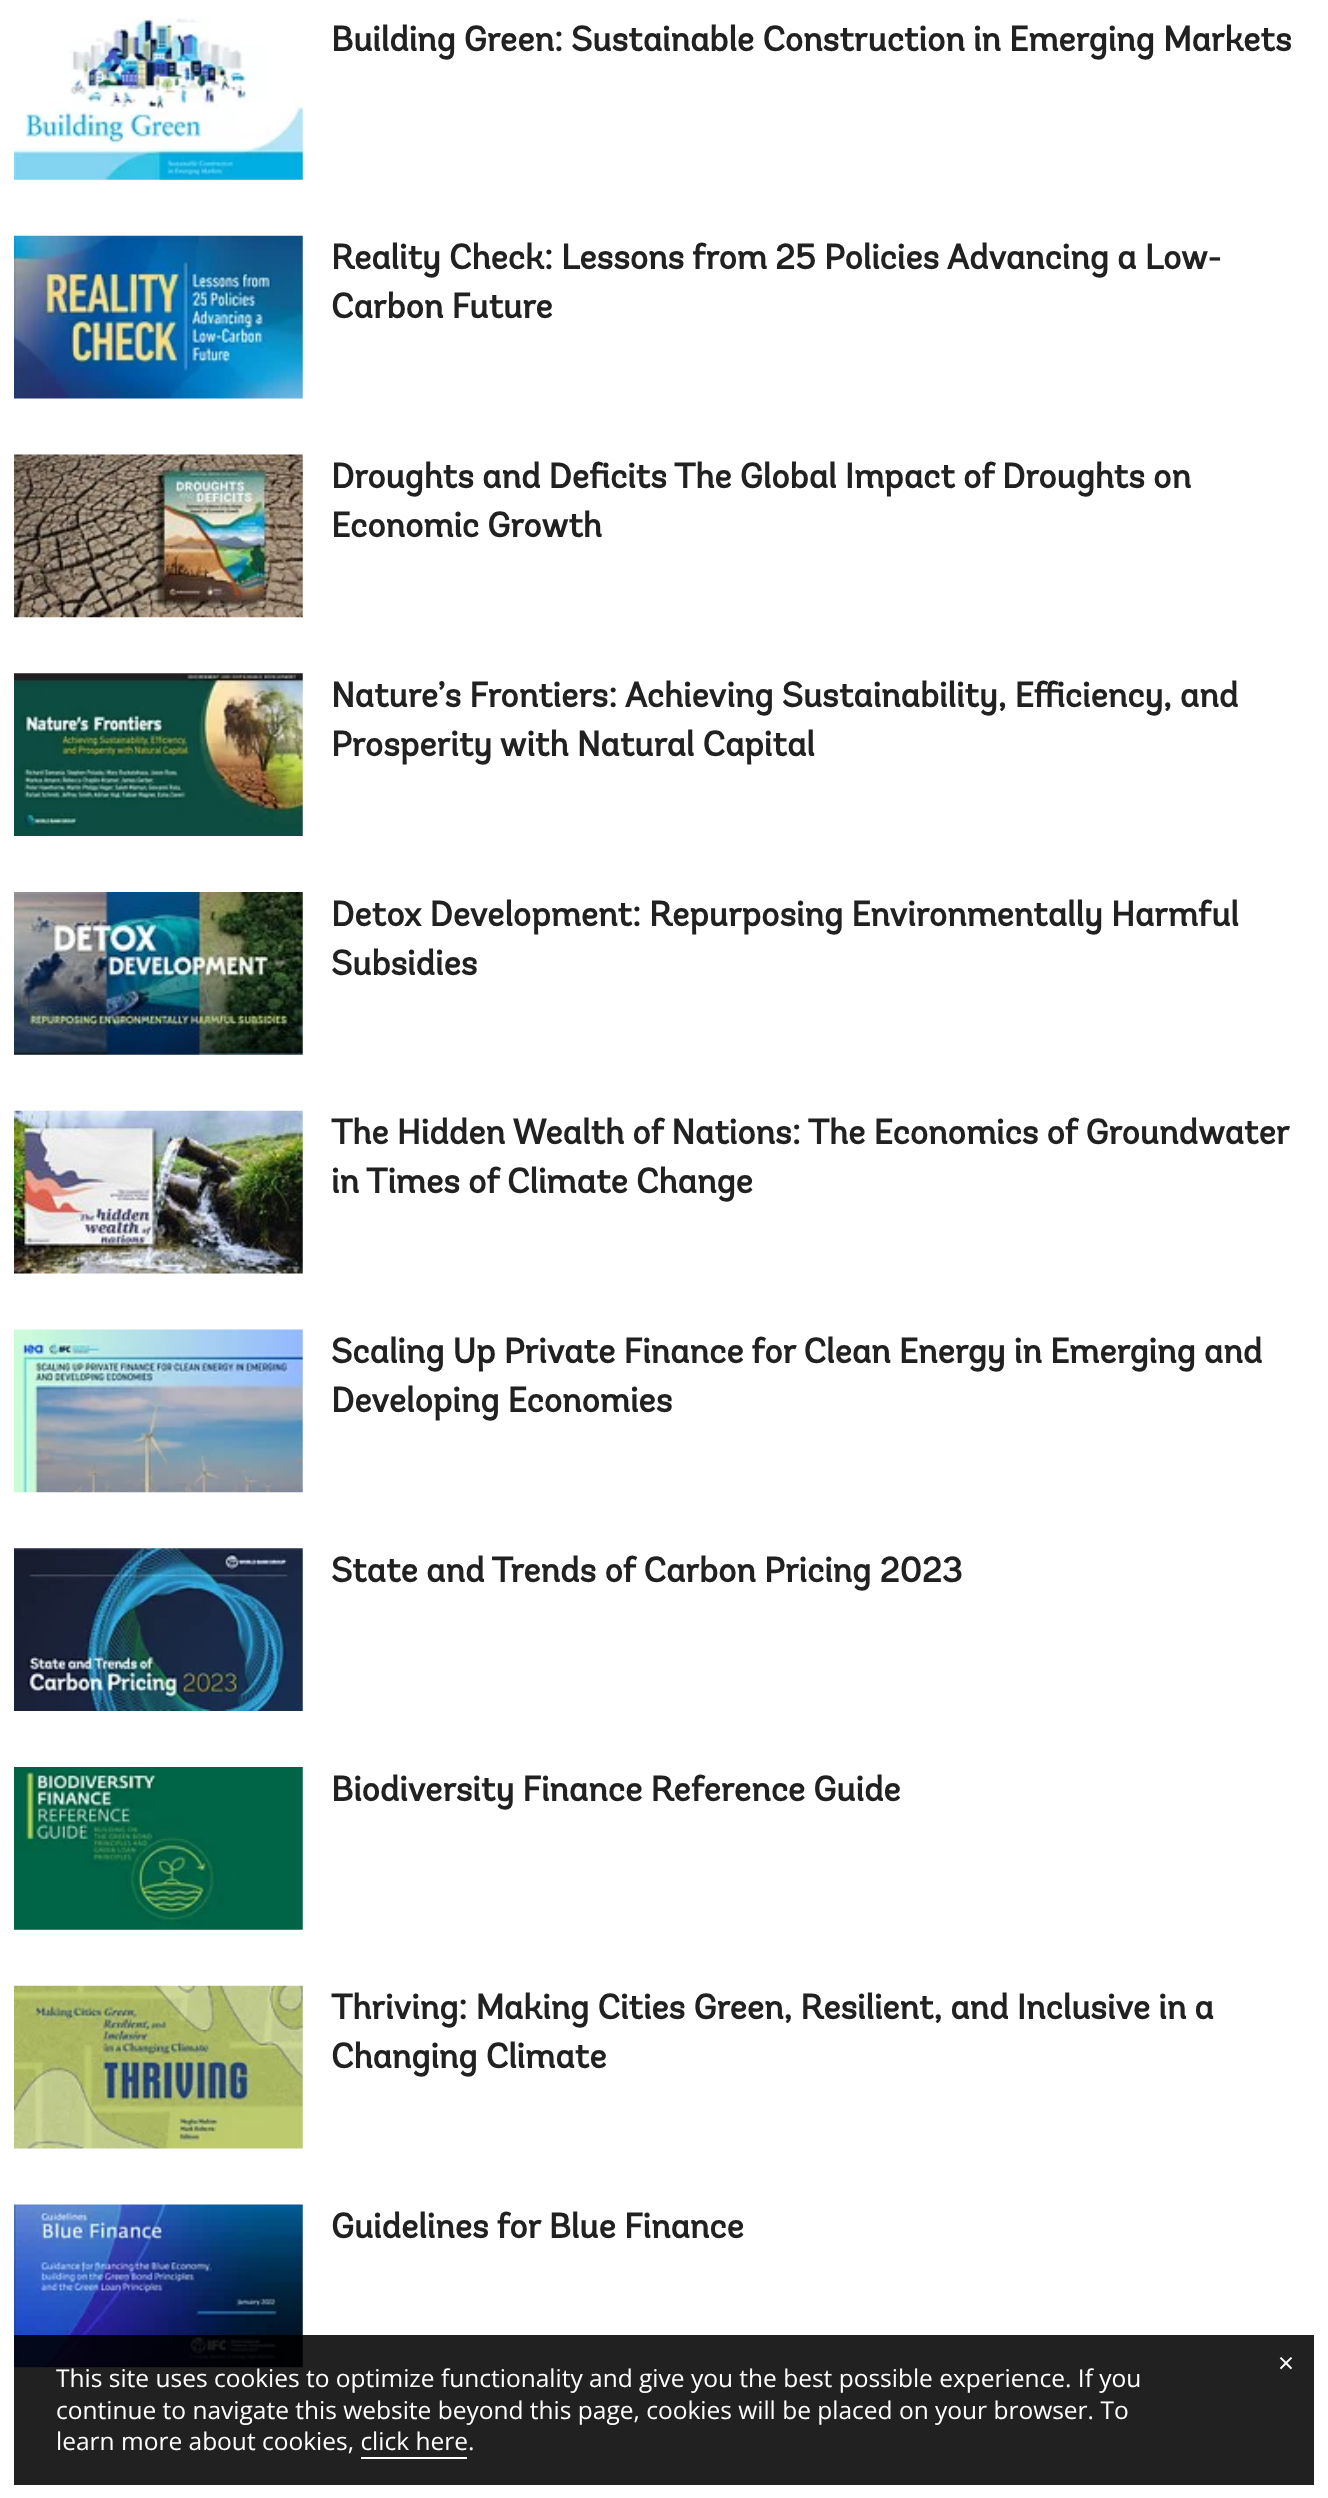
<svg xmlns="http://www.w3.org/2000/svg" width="1328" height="2498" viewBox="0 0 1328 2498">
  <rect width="100%" height="100%" fill="#fff"/>
  <image x="14" y="17" width="289" height="163" href="img/1.png"/>
  <image x="14" y="235" width="289" height="164" href="img/2.png"/>
  <image x="14" y="454" width="289" height="164" href="img/3.png"/>
  <image x="14" y="673" width="289" height="163" href="img/4.png"/>
  <image x="14" y="892" width="289" height="163" href="img/5.png"/>
  <image x="14" y="1110" width="289" height="164" href="img/6.png"/>
  <image x="14" y="1329" width="289" height="164" href="img/7.png"/>
  <image x="14" y="1548" width="289" height="163" href="img/8.png"/>
  <image x="14" y="1767" width="289" height="163" href="img/9.png"/>
  <image x="14" y="1985" width="289" height="164" href="img/10.png"/>
  <image x="14" y="2204" width="289" height="164" href="img/11.png"/>
  <path d="M14 2335h1300v150H14z" fill="#000000de"/>
  <path d="M361 2457h106v2H361z" fill="#fff"/>
  <g font-family="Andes" font-size="35" font-weight="bold" fill="#212121">
    <text x="331" y="51">Building Green: Sustainable Construction in Emerging Markets</text>
    <text x="331" y="269">Reality Check: Lessons from 25 Policies Advancing a Low-</text>
    <text x="331" y="318">Carbon Future</text>
    <text x="331" y="488">Droughts and Deficits The Global Impact of Droughts on</text>
    <text x="331" y="537">Economic Growth</text>
    <text x="331" y="707">Nature’s Frontiers: Achieving Sustainability, Efficiency, and</text>
    <text x="331" y="756">Prosperity with Natural Capital</text>
    <text x="331" y="926">Detox Development: Repurposing Environmentally Harmful</text>
    <text x="331" y="975">Subsidies</text>
    <text x="331" y="1144">The Hidden Wealth of Nations: The Economics of Groundwater</text>
    <text x="331" y="1193">in Times of Climate Change</text>
    <text x="331" y="1363">Scaling Up Private Finance for Clean Energy in Emerging and</text>
    <text x="331" y="1412">Developing Economies</text>
    <text x="331" y="1582">State and Trends of Carbon Pricing 2023</text>
    <text x="331" y="1801">Biodiversity Finance Reference Guide</text>
    <text x="331" y="2019">Thriving: Making Cities Green, Resilient, and Inclusive in a</text>
    <text x="331" y="2068">Changing Climate</text>
    <text x="331" y="2238">Guidelines for Blue Finance</text>
  </g>
  <text x="1278" y="2373" font-family="Open Sans" font-size="28" fill="#fff">×</text>
  <g font-family="Open Sans" font-size="24.5" fill="#fff">
    <text x="56" y="2387">This site uses cookies to optimize functionality and give you the best possible experience. If you</text>
    <text x="56" y="2419">continue to navigate this website beyond this page, cookies will be placed on your browser. To</text>
    <text x="56" y="2450">learn more about cookies, click here.</text>
  </g>
</svg>
